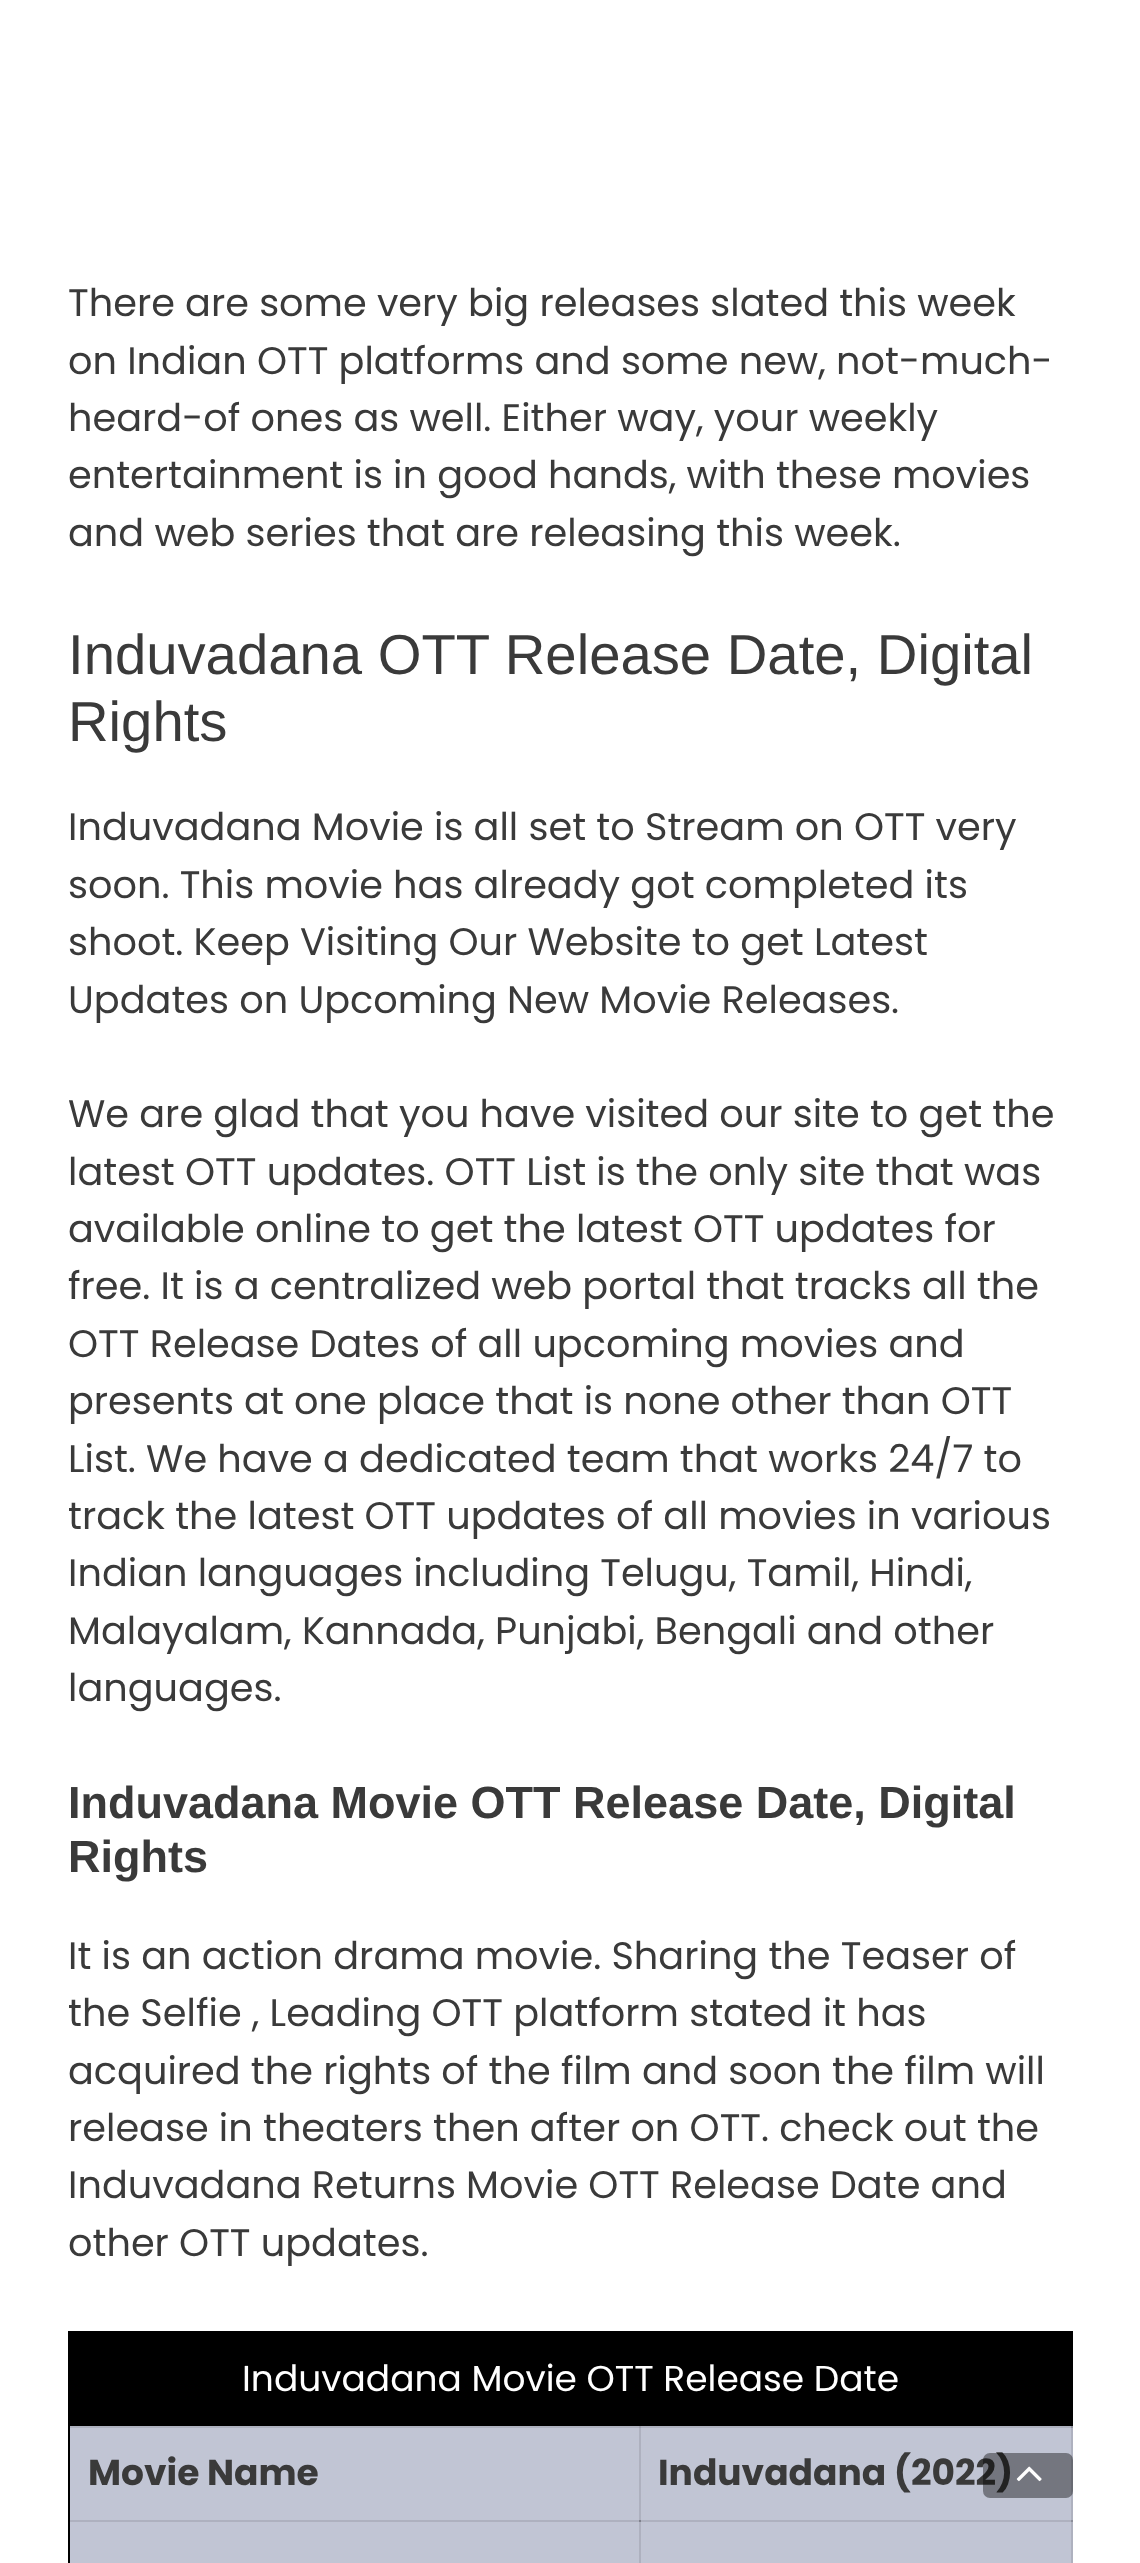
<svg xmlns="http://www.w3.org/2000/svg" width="1140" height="2563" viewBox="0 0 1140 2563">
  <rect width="100%" height="100%" fill="#fff"/>
  <path d="M70 2428h1001v135H70z" fill="#c1c5d4"/>
  <path d="M70 2426h1003v2H70z" fill="#aeb1bf"/>
  <path d="M70 2520h571v2H70z" fill="#aeb1bf"/>
  <path d="M639 2426h2v96H639z" fill="#aeb1bf"/>
  <path d="M639 2426h2v2H639z" fill="#9d9fac"/>
  <path d="M639 2520h434v2H639z" fill="#aeb1bf"/>
  <path d="M1071 2426h2v137H1071z" fill="#aeb1bf"/>
  <path d="M1071 2426h2v2H1071z" fill="#8d8f9b"/>
  <path d="M1071 2331h2v95H1071z" fill="#000"/>
  <path d="M68 2331h1005v2H68z" fill="#000"/>
  <path d="M68 2331h2v232H68z" fill="#000"/>
  <path d="M70 2333h1001v93H70z" fill="#000"/>
  <path d="M639 2520h2v43H639z" fill="#aeb1bf"/>
  <path d="M639 2520h2v2H639z" fill="#7f818c"/>
  <path d="M1071 2520h2v2H1071z" fill="#8d8f9b"/>
  <g font-family="Poppins" font-size="38.25" fill="#3a3a3a">
    <text x="68" y="316">There are some very big releases slated this week</text>
    <text x="68" y="374">on Indian OTT platforms and some new, not-much-</text>
    <text x="68" y="431">heard-of ones as well. Either way, your weekly</text>
    <text x="68" y="488">entertainment is in good hands, with these movies</text>
    <text x="68" y="546">and web series that are releasing this week.</text>
  </g>
  <g font-family="Liberation Sans" font-size="56.25" fill="#3a3a3a">
    <text x="68" y="674">Induvadana OTT Release Date, Digital</text>
    <text x="68" y="741">Rights</text>
  </g>
  <g font-family="Poppins" font-size="38.25" fill="#3a3a3a">
    <text x="68" y="840">Induvadana Movie is all set to Stream on OTT very</text>
    <text x="68" y="898">soon. This movie has already got completed its</text>
    <text x="68" y="955">shoot. Keep Visiting Our Website to get Latest</text>
    <text x="68" y="1013">Updates on Upcoming New Movie Releases.</text>
    <text x="68" y="1127">We are glad that you have visited our site to get the</text>
    <text x="68" y="1185">latest OTT updates. OTT List is the only site that was</text>
    <text x="68" y="1242">available online to get the latest OTT updates for</text>
    <text x="68" y="1299">free. It is a centralized web portal that tracks all the</text>
    <text x="68" y="1357">OTT Release Dates of all upcoming movies and</text>
    <text x="68" y="1414">presents at one place that is none other than OTT</text>
    <text x="68" y="1472">List. We have a dedicated team that works 24/7 to</text>
    <text x="68" y="1529">track the latest OTT updates of all movies in various</text>
    <text x="68" y="1586">Indian languages including Telugu, Tamil, Hindi,</text>
    <text x="68" y="1644">Malayalam, Kannada, Punjabi, Bengali and other</text>
    <text x="68" y="1701">languages.</text>
  </g>
  <g font-family="Liberation Sans" font-size="45" font-weight="bold" fill="#3a3a3a">
    <text x="68" y="1818">Induvadana Movie OTT Release Date, Digital</text>
    <text x="68" y="1872">Rights</text>
  </g>
  <g font-family="Poppins" font-size="38.25" fill="#3a3a3a">
    <text x="68" y="1969">It is an action drama movie. Sharing the Teaser of</text>
    <text x="68" y="2026">the Selfie , Leading OTT platform stated it has</text>
    <text x="68" y="2084">acquired the rights of the film and soon the film will</text>
    <text x="68" y="2141">release in theaters then after on OTT. check out the</text>
    <text x="68" y="2198">Induvadana Returns Movie OTT Release Date and</text>
    <text x="68" y="2256">other OTT updates.</text>
  </g>
  <text x="242" y="2391" font-family="Poppins" font-size="36" fill="#fff">Induvadana Movie OTT Release Date</text>
  <g font-family="Poppins" font-size="36" font-weight="bold" fill="#3a3a3a">
    <text x="88" y="2485">Movie Name</text>
    <text x="658" y="2485">Induvadana (2022)</text>
  </g>
  <rect x="983" y="2453" width="90" height="45" rx="7" fill="#00000066"/>
  <image x="1016" y="2466" width="26" height="16" href="img/1.png"/>
</svg>
